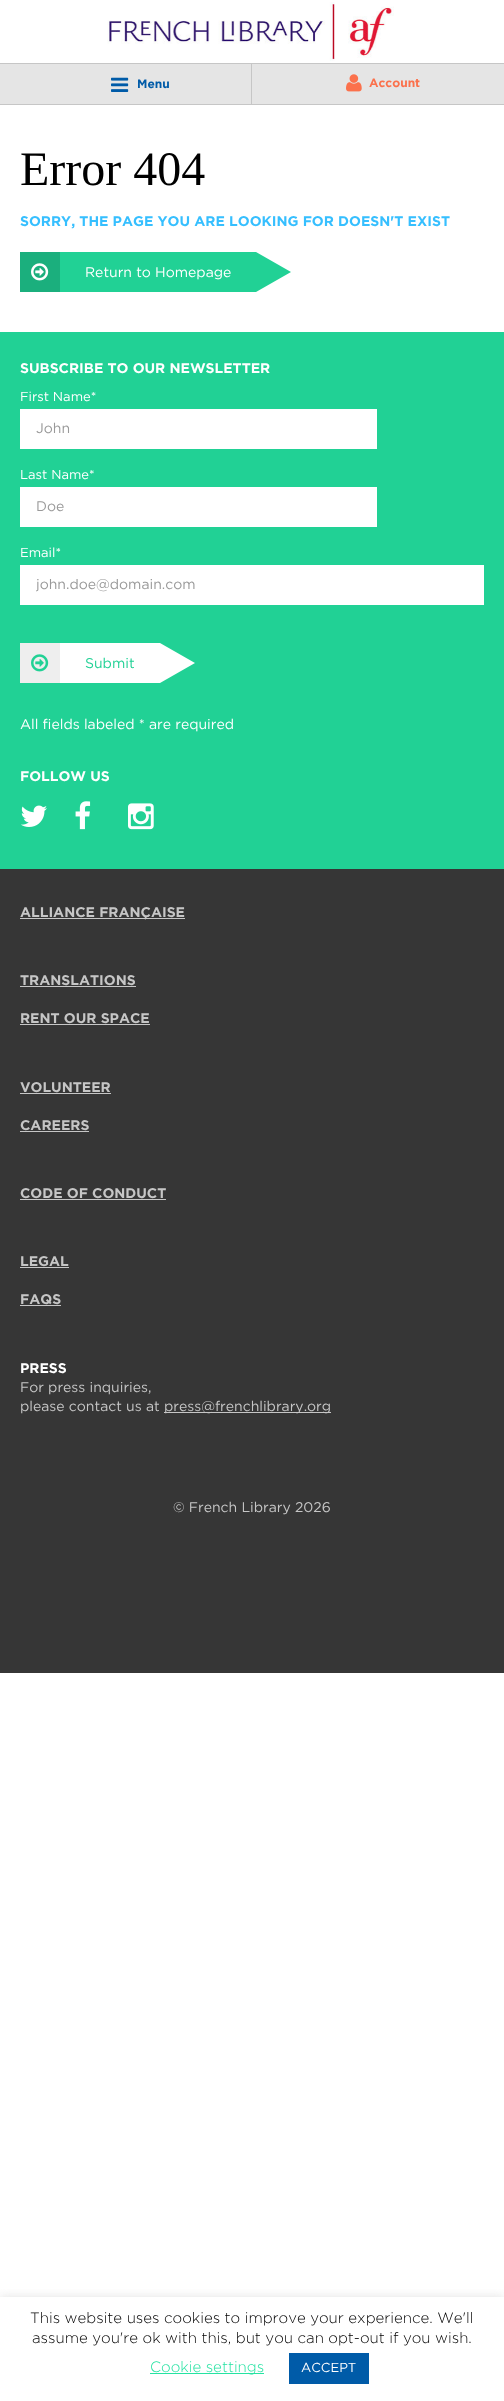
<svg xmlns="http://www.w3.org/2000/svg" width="504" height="2401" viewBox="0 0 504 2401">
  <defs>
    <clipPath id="clip1"><path d="M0 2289h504v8H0z"/></clipPath>
    <clipPath id="clip2"><path d="M36 579h432v13H36z"/></clipPath>
  </defs>
  <rect width="100%" height="100%" fill="#fff"/>
  <path d="M0 104h504v1H0z" fill="#c6c6c6"/>
  <image x="107" y="2" width="287" height="59" href="img/1.png"/>
  <path d="M0 63h504v1H0z" fill="#c6c6c6"/>
  <path d="M0 64h251v40H0z" fill="#e5e5e5"/>
  <path d="M251 64h1v40H251z" fill="#c6c6c6"/>
  <image x="111" y="77" width="18" height="15" href="img/2.png"/>
  <path d="M252 64h252v40H252z" fill="#e5e5e5"/>
  <image x="346" y="74" width="16" height="18" href="img/3.png"/>
  <path d="M60 252h196v40H60z" fill="#21d195"/>
  <path d="M20 252h40v40H20z" fill="#1baf7d"/>
  <image x="31" y="263" width="18" height="18" href="img/4.png"/>
  <path d="M256 292V252L291 272Z" fill="#21d195"/>
  <path d="M0 332h504v537H0z" fill="#21d195"/>
  <path d="M20 409h357v40H20z" fill="#fff"/>
  <path d="M20 487h357v40H20z" fill="#fff"/>
  <path d="M20 565h464v40H20z" fill="#fff"/>
  <path d="M60 643h100v40H60z" fill="#fff"/>
  <path d="M20 643h40v40H20z" fill="#eee"/>
  <image x="31" y="654" width="18" height="18" href="img/5.png"/>
  <path d="M160 683V643L195 663Z" fill="#fff"/>
  <image x="21" y="805" width="26" height="22" href="img/6.png"/>
  <image x="75" y="801" width="16" height="29" href="img/7.png"/>
  <image x="128" y="803" width="26" height="27" href="img/8.png"/>
  <path d="M0 869h504v804H0z" fill="#363636"/>
  <path d="M20 918h165v1H20z" fill="#c6c6c6"/>
  <path d="M20 986h116v1H20z" fill="#c6c6c6"/>
  <path d="M20 1024h130v1H20z" fill="#c6c6c6"/>
  <path d="M20 1093h91v1H20z" fill="#c6c6c6"/>
  <path d="M20 1131h69v1H20z" fill="#c6c6c6"/>
  <path d="M20 1199h146v1H20z" fill="#c6c6c6"/>
  <path d="M20 1267h49v1H20z" fill="#c6c6c6"/>
  <path d="M20 1305h41v1H20z" fill="#c6c6c6"/>
  <path d="M164 1412h167v1H164z" fill="#c6c6c6"/>
  <g clip-path="url(#clip1)">
    <path d="M0 2296h504v104H0z" fill="#acabab4d" filter="blur(5px)"/>
  </g>
  <path d="M150 2373h114v1H150z" fill="#25e3a2"/>
  <path d="M289 2353h80v31H289z" fill="#005ba8"/>
  <text x="137" y="88" font-family="Gotham" font-size="12" font-weight="bold" fill="#005ba8">Menu</text>
  <text x="369" y="87" font-family="Gotham" font-size="12" font-weight="bold" fill="#fb714c">Account</text>
  <text x="20" y="185" font-family="Liberation Serif" font-size="48" fill="#000">Error 404</text>
  <text x="20" y="226" font-family="Gotham" font-size="14" font-weight="bold" fill="#36bfff">SORRY, THE PAGE YOU ARE LOOKING FOR DOESN'T EXIST</text>
  <text x="85" y="277" font-family="Gotham" font-size="14" fill="#fff">Return to Homepage</text>
  <text x="20" y="373" font-family="Gotham" font-size="14" font-weight="bold" fill="#fff">SUBSCRIBE TO OUR NEWSLETTER</text>
  <text x="20" y="401" font-family="Gotham" font-size="13" fill="#fff">First Name*</text>
  <text x="36" y="433" font-family="Gotham" font-size="14" fill="#999">John</text>
  <text x="20" y="479" font-family="Gotham" font-size="13" fill="#fff">Last Name*</text>
  <text x="36" y="511" font-family="Gotham" font-size="14" fill="#999">Doe</text>
  <text x="20" y="557" font-family="Gotham" font-size="13" fill="#fff">Email*</text>
  <g clip-path="url(#clip2)">
    <text x="36" y="589" font-family="Gotham" font-size="14" fill="#999">john.doe@domain.com</text>
  </g>
  <text x="85" y="668" font-family="Gotham" font-size="14" fill="#21d195">Submit</text>
  <text x="20" y="729" font-family="Gotham" font-size="14" fill="#fff">All fields labeled * are required</text>
  <text x="20" y="781" font-family="Gotham" font-size="14" font-weight="bold" fill="#fff">FOLLOW US</text>
  <g font-family="Gotham" font-size="14" font-weight="bold" fill="#c6c6c6">
    <text x="20" y="917">ALLIANCE FRANÇAISE</text>
    <text x="20" y="985">TRANSLATIONS</text>
    <text x="20" y="1023">RENT OUR SPACE</text>
    <text x="20" y="1092">VOLUNTEER</text>
    <text x="20" y="1130">CAREERS</text>
    <text x="20" y="1198">CODE OF CONDUCT</text>
    <text x="20" y="1266">LEGAL</text>
    <text x="20" y="1304">FAQS</text>
  </g>
  <text x="20" y="1373" font-family="Gotham" font-size="14" font-weight="bold" fill="#fff">PRESS</text>
  <g font-family="Gotham" font-size="14" fill="#c6c6c6">
    <text x="20" y="1392">For press inquiries,</text>
    <text x="20" y="1411">please contact us at</text>
    <text x="164" y="1411">press@frenchlibrary.org</text>
    <text x="173" y="1512">© French Library 2026</text>
  </g>
  <g font-family="Gotham" font-size="15" font-weight="300" fill="#000">
    <text x="30" y="2323">This website uses cookies to improve your experience. We'll</text>
    <text x="32" y="2343">assume you're ok with this, but you can opt-out if you wish.</text>
  </g>
  <text x="150" y="2372" font-family="Gotham" font-size="15" font-weight="300" fill="#25e3a2">Cookie settings</text>
  <text x="301" y="2372" font-family="Gotham" font-size="13" fill="#fff">ACCEPT</text>
</svg>
